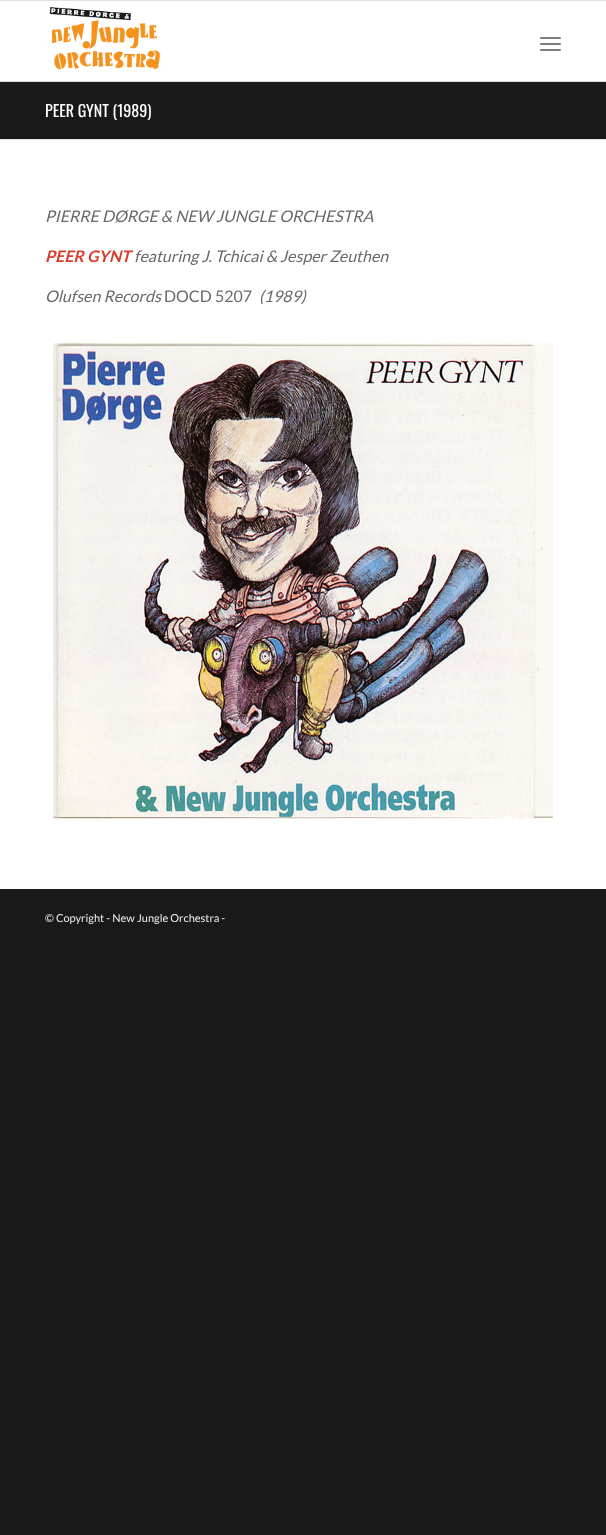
<svg xmlns="http://www.w3.org/2000/svg" width="606" height="1535" viewBox="0 0 606 1535">
  <rect width="100%" height="100%" fill="#191919"/>
  <path d="M0 0h606v1H0z" fill="#e1e1e1"/>
  <path d="M0 81h606v1H0z" fill="#e1e1e1"/>
  <path d="M0 1h606v80H0z" fill="#fff"/>
  <image x="49" y="7" width="112" height="63" href="img/1.png"/>
  <rect x="540" y="43" width="21" height="2" rx="1" fill="#7d7d7d"/>
  <rect x="540" y="37" width="21" height="2" rx="1" fill="#7d7d7d"/>
  <rect x="540" y="49" width="21" height="2" rx="1" fill="#7d7d7d"/>
  <path d="M0 140h606v749H0z" fill="#fff"/>
  <path d="M0 139h606v1H0z" fill="#e1e1e1"/>
  <image x="53" y="343" width="500" height="476" href="img/2.png"/>
  <text x="45" y="117" font-family="Oswald" font-size="16" fill="#fff">PEER GYNT (1989)</text>
  <text x="45" y="222" font-family="Lato" font-size="16" font-style="italic" fill="#696969">PIERRE DØRGE &amp; NEW JUNGLE ORCHESTRA</text>
  <text x="45" y="262" font-family="Lato" font-size="16" font-weight="bold" font-style="italic" fill="#d63e2d">PEER GYNT</text>
  <g font-family="Lato" font-size="16" font-style="italic" fill="#696969">
    <text x="134" y="262">featuring J. Tchicai &amp; Jesper Zeuthen</text>
    <text x="45" y="302">Olufsen Records</text>
  </g>
  <text x="164" y="302" font-family="Lato" font-size="16" fill="#696969">DOCD 5207</text>
  <text x="259" y="302" font-family="Lato" font-size="16" font-style="italic" fill="#696969">(1989)</text>
  <text x="45" y="922" font-family="Lato" font-size="11" fill="#eee">© Copyright - New Jungle Orchestra -</text>
</svg>
